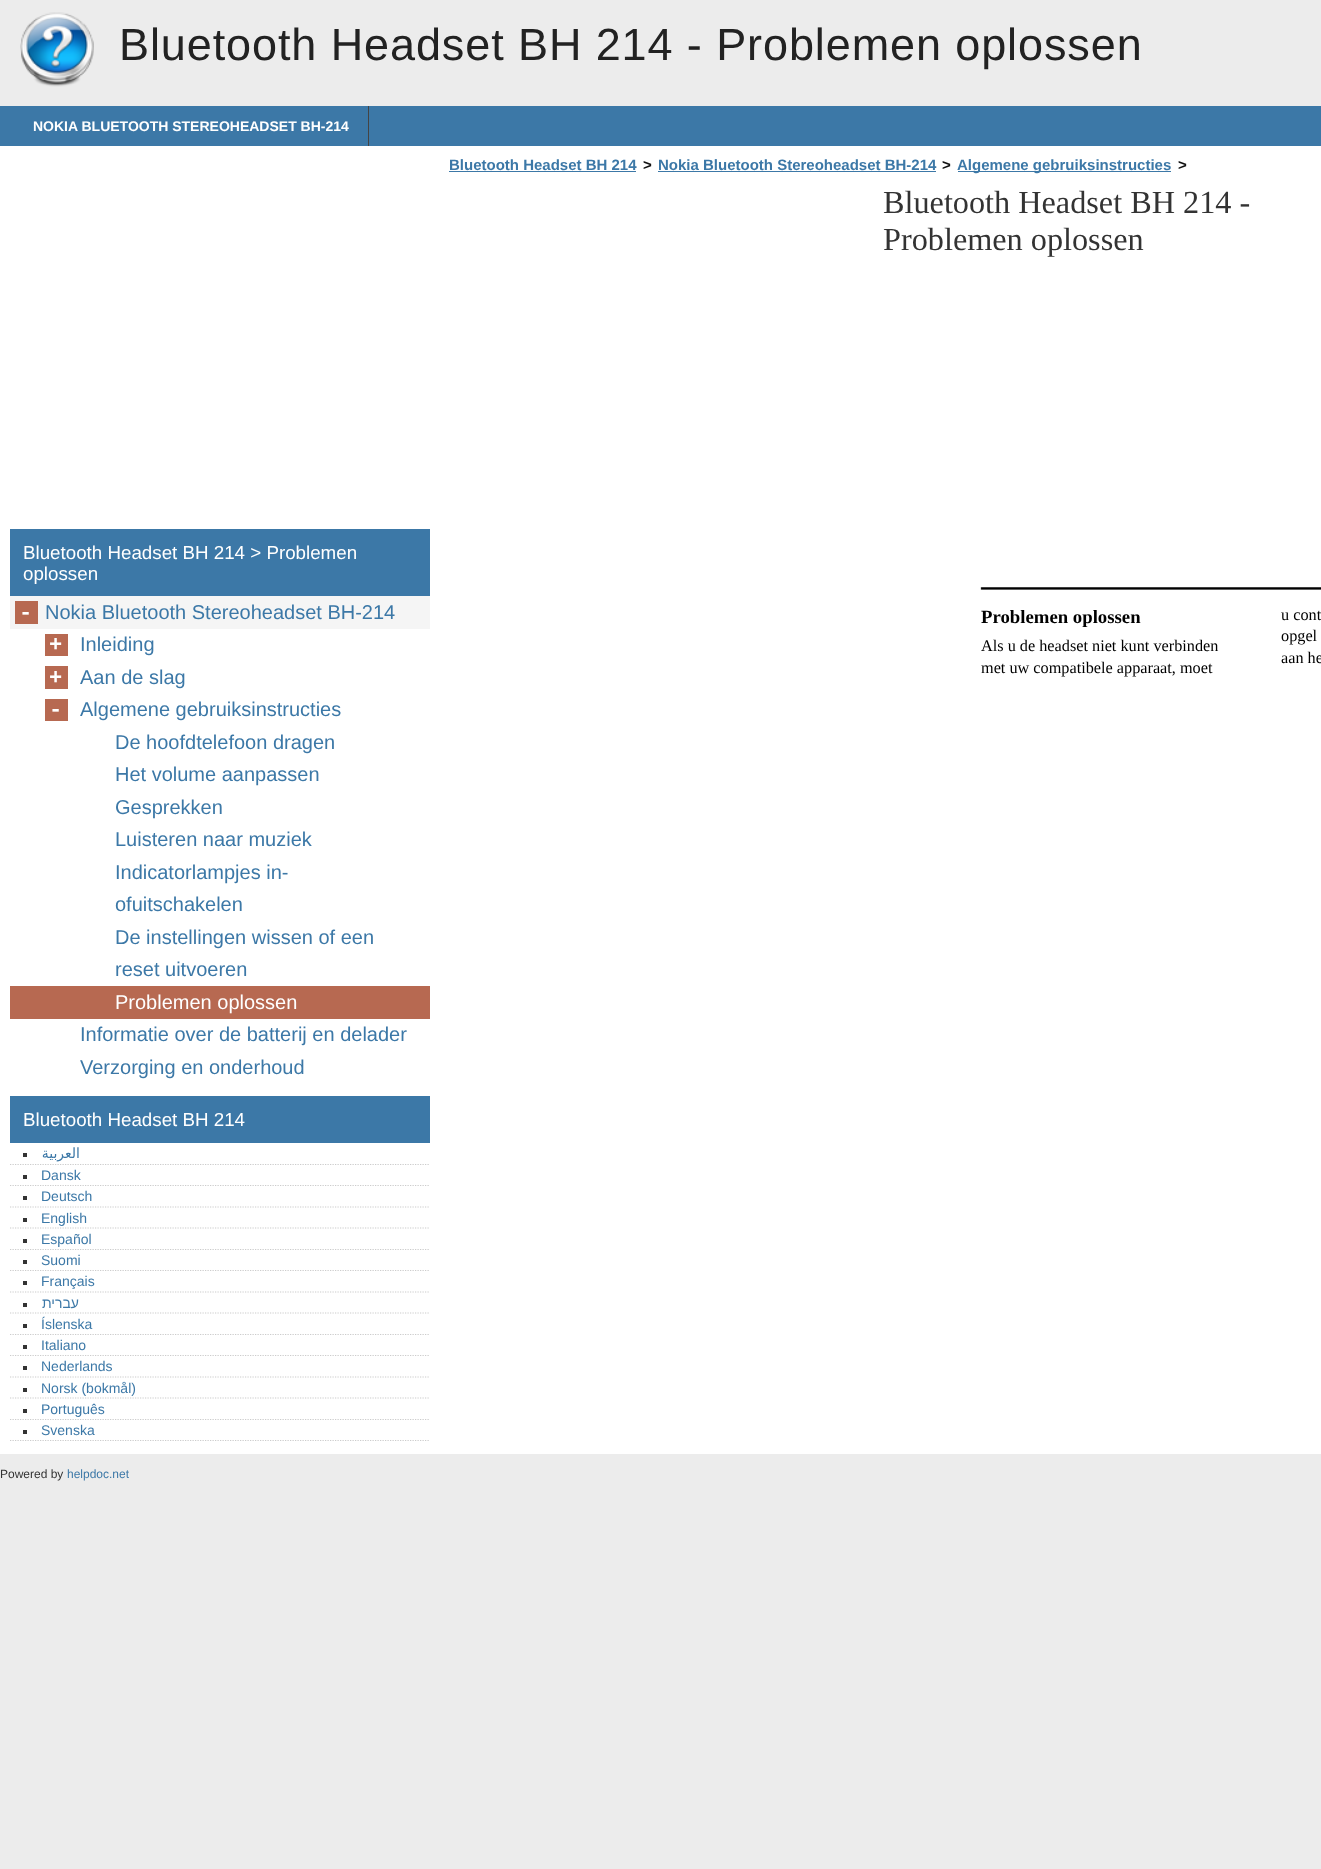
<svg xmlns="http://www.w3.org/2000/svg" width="1321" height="1869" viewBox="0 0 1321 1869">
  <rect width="100%" height="100%" fill="#ececec"/>
  <image x="20" y="12" width="74" height="75" href="img/1.png"/>
  <path d="M0 106h1321v40H0z" fill="#3c78a7"/>
  <path d="M368 106h1v40H368z" fill="#444"/>
  <path d="M0 146h1321v1308H0z" fill="#fff"/>
  <path d="M449 171h187v1H449z" fill="#3c78a7"/>
  <path d="M658 171h278v1H658z" fill="#3c78a7"/>
  <path d="M958 171h213v1H958z" fill="#3c78a7"/>
  <image x="980" y="587" width="341" height="3" href="img/2.png"/>
  <path d="M10 529h420v67H10z" fill="#3c78a7"/>
  <path d="M10 596h420v33H10z" fill="#f5f5f5"/>
  <path d="M15 601h23v23H15z" fill="#b76951"/>
  <path d="M45 634h23v22H45z" fill="#b76951"/>
  <path d="M45 666h23v23H45z" fill="#b76951"/>
  <path d="M45 699h23v22H45z" fill="#b76951"/>
  <path d="M10 986h420v33H10z" fill="#b76951"/>
  <path d="M10 1096h420v47H10z" fill="#3c78a7"/>
  <path d="M10 1164.5H430" fill="none" stroke="#ccc" stroke-width="1.2" stroke-dasharray="1.25 1.25"/>
  <path d="M23 1153h4v4H23z" fill="#333"/>
  <path d="M10 1185.5H430" fill="none" stroke="#ccc" stroke-width="1.2" stroke-dasharray="1.25 1.25"/>
  <path d="M23 1175h4v4H23z" fill="#333"/>
  <path d="M10 1207H430" fill="none" stroke="#ccc" stroke-width="1.2" stroke-dasharray="1.25 1.25"/>
  <path d="M23 1196h4v4H23z" fill="#333"/>
  <path d="M10 1228H430" fill="none" stroke="#ccc" stroke-width="1.2" stroke-dasharray="1.25 1.25"/>
  <path d="M23 1218h4v4H23z" fill="#333"/>
  <path d="M10 1249.5H430" fill="none" stroke="#ccc" stroke-width="1.2" stroke-dasharray="1.25 1.25"/>
  <path d="M23 1239h4v4H23z" fill="#333"/>
  <path d="M10 1270.5H430" fill="none" stroke="#ccc" stroke-width="1.2" stroke-dasharray="1.25 1.25"/>
  <path d="M23 1260h4v4H23z" fill="#333"/>
  <path d="M10 1292H430" fill="none" stroke="#ccc" stroke-width="1.2" stroke-dasharray="1.25 1.25"/>
  <path d="M23 1281h4v4H23z" fill="#333"/>
  <path d="M10 1313H430" fill="none" stroke="#ccc" stroke-width="1.2" stroke-dasharray="1.25 1.25"/>
  <path d="M23 1303h4v4H23z" fill="#333"/>
  <path d="M10 1334.5H430" fill="none" stroke="#ccc" stroke-width="1.2" stroke-dasharray="1.25 1.25"/>
  <path d="M23 1324h4v4H23z" fill="#333"/>
  <path d="M10 1355.5H430" fill="none" stroke="#ccc" stroke-width="1.2" stroke-dasharray="1.25 1.25"/>
  <path d="M23 1345h4v4H23z" fill="#333"/>
  <path d="M10 1377H430" fill="none" stroke="#ccc" stroke-width="1.2" stroke-dasharray="1.25 1.25"/>
  <path d="M23 1366h4v4H23z" fill="#333"/>
  <path d="M10 1398H430" fill="none" stroke="#ccc" stroke-width="1.2" stroke-dasharray="1.25 1.25"/>
  <path d="M23 1388h4v4H23z" fill="#333"/>
  <path d="M10 1419.5H430" fill="none" stroke="#ccc" stroke-width="1.2" stroke-dasharray="1.25 1.25"/>
  <path d="M23 1409h4v4H23z" fill="#333"/>
  <path d="M10 1440.5H430" fill="none" stroke="#ccc" stroke-width="1.2" stroke-dasharray="1.25 1.25"/>
  <path d="M23 1430h4v4H23z" fill="#333"/>
  <text x="119" y="60" font-family="Liberation Sans" font-size="45" letter-spacing="0.9" fill="#222">Bluetooth Headset BH 214 - Problemen oplossen</text>
  <text x="33" y="131" font-family="Liberation Sans" font-size="14" font-weight="bold" fill="#fff">NOKIA BLUETOOTH STEREOHEADSET BH-214</text>
  <text x="449" y="170" font-family="Liberation Sans" font-size="15" font-weight="bold" fill="#3c78a7">Bluetooth Headset BH 214</text>
  <text x="643" y="170" font-family="Liberation Sans" font-size="15" font-weight="bold" fill="#111">&gt;</text>
  <text x="658" y="170" font-family="Liberation Sans" font-size="15" font-weight="bold" fill="#3c78a7">Nokia Bluetooth Stereoheadset BH-214</text>
  <text x="942" y="170" font-family="Liberation Sans" font-size="15" font-weight="bold" fill="#111">&gt;</text>
  <text x="957" y="170" font-family="Liberation Sans" font-size="15" font-weight="bold" fill="#3c78a7">Algemene gebruiksinstructies</text>
  <text x="1178" y="170" font-family="Liberation Sans" font-size="15" font-weight="bold" fill="#111">&gt;</text>
  <g font-family="Liberation Serif" font-size="32.25" fill="#333">
    <text x="883" y="213">Bluetooth Headset BH 214 -</text>
    <text x="883" y="250">Problemen oplossen</text>
  </g>
  <text x="981" y="623" font-family="Liberation Serif" font-size="18.75" font-weight="bold" fill="#000">Problemen oplossen</text>
  <g font-family="Liberation Serif" font-size="16.25" fill="#000">
    <text x="1281" y="620">u cont</text>
    <text x="1281" y="641">opgel</text>
    <text x="1281" y="663">aan he</text>
    <text x="981" y="651">Als u de headset niet kunt verbinden</text>
    <text x="981" y="673">met uw compatibele apparaat, moet</text>
  </g>
  <g font-family="Liberation Sans" font-size="18.75" fill="#fff">
    <text x="23" y="559">Bluetooth Headset BH 214 &gt; Problemen</text>
    <text x="23" y="580">oplossen</text>
  </g>
  <text x="19" y="619" font-family="Liberation Mono" font-size="22" font-weight="bold" fill="#fff">-</text>
  <text x="45" y="619" font-family="Liberation Sans" font-size="20" fill="#3c78a7">Nokia Bluetooth Stereoheadset BH-214</text>
  <text x="49" y="651" font-family="Liberation Mono" font-size="22" font-weight="bold" fill="#fff">+</text>
  <text x="80" y="651" font-family="Liberation Sans" font-size="20" fill="#3c78a7">Inleiding</text>
  <text x="49" y="684" font-family="Liberation Mono" font-size="22" font-weight="bold" fill="#fff">+</text>
  <text x="80" y="684" font-family="Liberation Sans" font-size="20" fill="#3c78a7">Aan de slag</text>
  <text x="49" y="716" font-family="Liberation Mono" font-size="22" font-weight="bold" fill="#fff">-</text>
  <g font-family="Liberation Sans" font-size="20" fill="#3c78a7">
    <text x="80" y="716">Algemene gebruiksinstructies</text>
    <text x="115" y="749">De hoofdtelefoon dragen</text>
    <text x="115" y="781">Het volume aanpassen</text>
    <text x="115" y="814">Gesprekken</text>
    <text x="115" y="846">Luisteren naar muziek</text>
    <text x="115" y="879">Indicatorlampjes in-</text>
    <text x="115" y="911">ofuitschakelen</text>
    <text x="115" y="944">De instellingen wissen of een</text>
    <text x="115" y="976">reset uitvoeren</text>
  </g>
  <text x="115" y="1009" font-family="Liberation Sans" font-size="20" fill="#fff">Problemen oplossen</text>
  <g font-family="Liberation Sans" font-size="20" fill="#3c78a7">
    <text x="80" y="1041">Informatie over de batterij en delader</text>
    <text x="80" y="1074">Verzorging en onderhoud</text>
  </g>
  <text x="23" y="1126" font-family="Liberation Sans" font-size="18.75" fill="#fff">Bluetooth Headset BH 214</text>
  <text x="80" y="1158" font-family="DejaVu Sans" font-size="14" direction="rtl" fill="#3c78a7">العربية</text>
  <g font-family="Liberation Sans" font-size="14" fill="#3c78a7">
    <text x="41" y="1180">Dansk</text>
    <text x="41" y="1201">Deutsch</text>
    <text x="41" y="1223">English</text>
    <text x="41" y="1244">Español</text>
    <text x="41" y="1265">Suomi</text>
    <text x="41" y="1286">Français</text>
  </g>
  <text x="79" y="1308" font-family="Liberation Sans" font-size="14" direction="rtl" fill="#3c78a7">עברית</text>
  <g font-family="Liberation Sans" font-size="14" fill="#3c78a7">
    <text x="41" y="1329">Íslenska</text>
    <text x="41" y="1350">Italiano</text>
    <text x="41" y="1371">Nederlands</text>
    <text x="41" y="1393">Norsk (bokmål)</text>
    <text x="41" y="1414">Português</text>
    <text x="41" y="1435">Svenska</text>
  </g>
  <text x="0" y="1478" font-family="Liberation Sans" font-size="12" fill="#333">Powered by</text>
  <text x="67" y="1478" font-family="Liberation Sans" font-size="12" fill="#3c78a7">helpdoc.net</text>
</svg>
